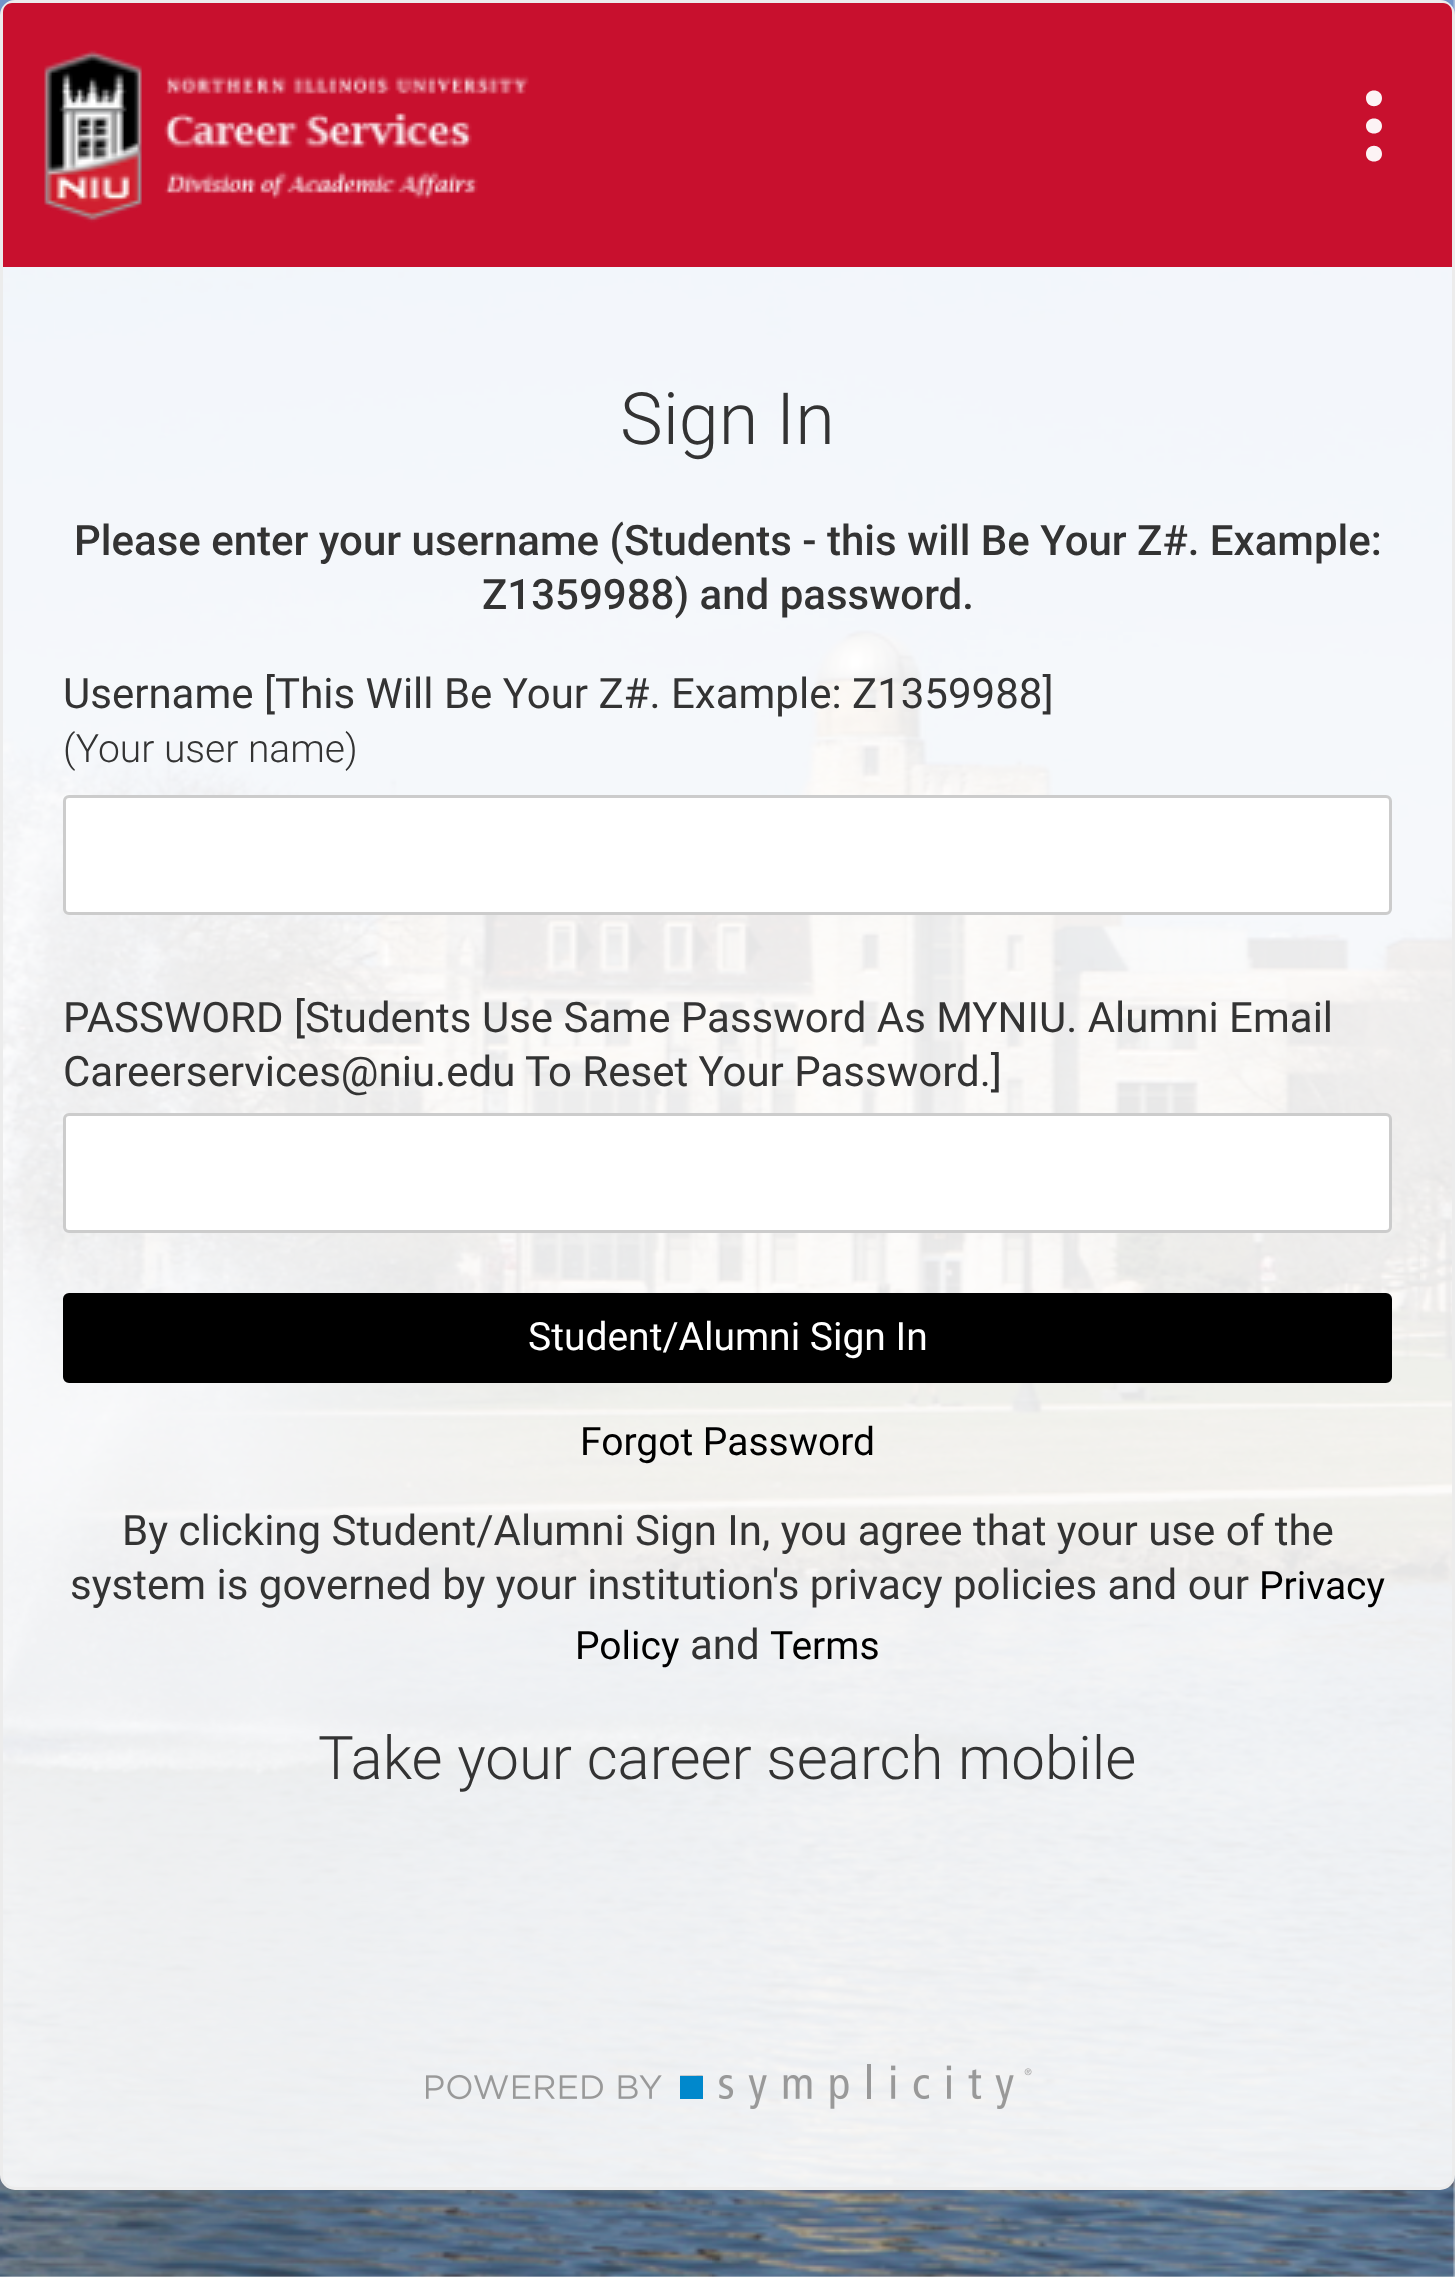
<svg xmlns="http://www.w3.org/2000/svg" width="1455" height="2277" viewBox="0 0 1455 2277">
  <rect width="100%" height="100%" fill="#f6f6f6"/>
  <image x="0" y="0" width="1455" height="2277" href="img/1.png"/>
  <rect x="1.5" y="1.5" width="1452" height="2187" rx="13.5" fill="#ffffffe6" stroke="#ececec" stroke-width="3"/>
  <path d="M12 3H1443C1448 3 1452 7 1452 12V267H3V12C3 7 7 3 12 3Z" fill="#c8102e"/>
  <image x="44" y="50" width="485" height="173" href="img/2.png"/>
  <path d="M1382 98C1382 109 1366 109 1366 98C1366 88 1382 88 1382 98ZM1382 126C1382 136 1366 136 1366 126C1366 116 1382 116 1382 126ZM1382 154C1382 164 1366 164 1366 154C1366 143 1382 143 1382 154Z" fill="#fcf3f5"/>
  <rect x="64.5" y="796.5" width="1326" height="117" rx="4.5" fill="#fff" stroke="#ccc" stroke-width="3"/>
  <rect x="64.5" y="1114.5" width="1326" height="117" rx="4.5" fill="#fff" stroke="#ccc" stroke-width="3"/>
  <rect x="64.5" y="1294.5" width="1326" height="87" rx="4.5" fill="#000" stroke="#000" stroke-width="3"/>
  <image x="426" y="2064" width="606" height="45" href="img/3.png"/>
  <text x="620" y="444" font-family="Roboto" font-size="72" font-weight="300" fill="#333">Sign In</text>
  <g font-family="Roboto" font-size="42" font-weight="500" fill="#333">
    <text x="74" y="555">Please enter your username (Students - this will Be Your Z#. Example:</text>
    <text x="482" y="609">Z1359988) and password.</text>
  </g>
  <text x="63" y="708" font-family="Roboto" font-size="42" fill="#333">Username [This Will Be Your Z#. Example: Z1359988]</text>
  <text x="63" y="762" font-family="Roboto" font-size="39" font-weight="300" fill="#333">(Your user name)</text>
  <g font-family="Roboto" font-size="42" fill="#333">
    <text x="63" y="1032">PASSWORD [Students Use Same Password As MYNIU. Alumni Email</text>
    <text x="63" y="1086">Careerservices@niu.edu To Reset Your Password.]</text>
  </g>
  <text x="528" y="1350" font-family="Roboto" font-size="39" fill="#fff">Student/Alumni Sign In</text>
  <text x="580" y="1455" font-family="Roboto" font-size="39" fill="#000">Forgot Password</text>
  <g font-family="Roboto" font-size="42" fill="#333">
    <text x="122" y="1545">By clicking Student/Alumni Sign In, you agree that your use of the</text>
    <text x="70" y="1599">system is governed by your institution's privacy policies and our</text>
  </g>
  <g font-family="Roboto" font-size="39" fill="#000">
    <text x="1259" y="1599">Privacy</text>
    <text x="575" y="1659">Policy</text>
  </g>
  <text x="690" y="1659" font-family="Roboto" font-size="42" fill="#333">and</text>
  <text x="770" y="1659" font-family="Roboto" font-size="39" fill="#000">Terms</text>
  <text x="318" y="1779" font-family="Roboto" font-size="60" font-weight="300" fill="#333">Take your career search mobile</text>
</svg>
